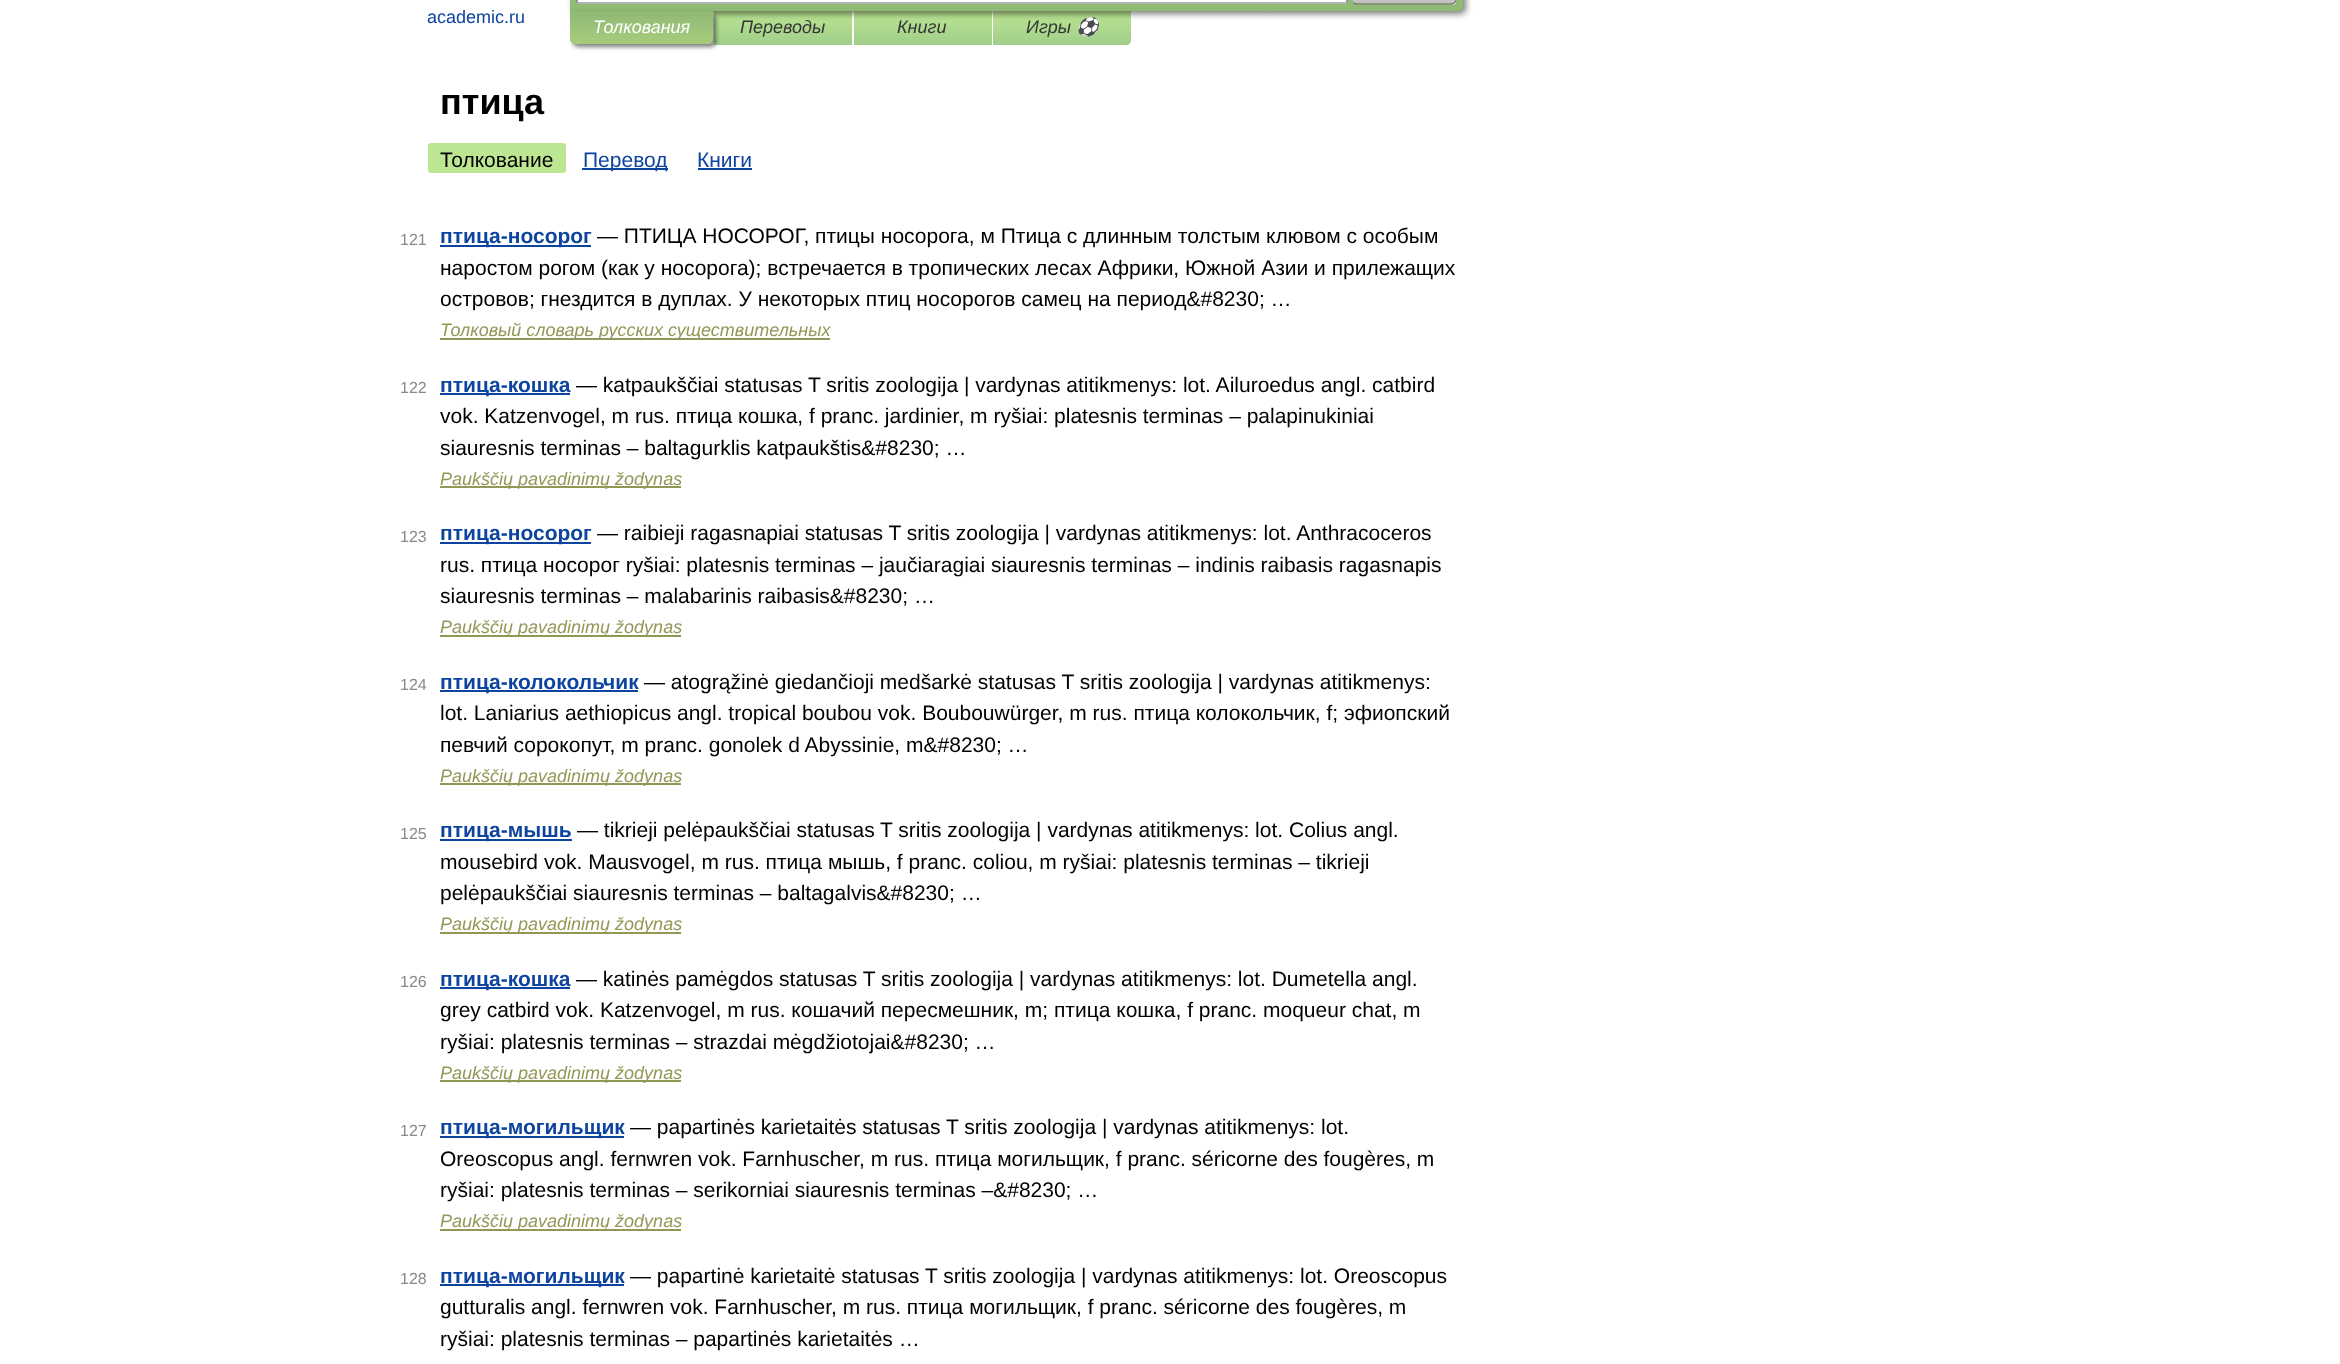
<svg xmlns="http://www.w3.org/2000/svg" width="2340" height="1364" viewBox="0 0 2340 1364">
  <defs>
    <linearGradient id="g1" gradientUnits="userSpaceOnUse" x1="783" y1="10" x2="783" y2="45"><stop offset="0" stop-color="#bde693"/><stop offset="1" stop-color="#a0ce8a"/></linearGradient>
    <linearGradient id="g2" gradientUnits="userSpaceOnUse" x1="923" y1="10" x2="923" y2="45"><stop offset="0" stop-color="#bde693"/><stop offset="1" stop-color="#a0ce8a"/></linearGradient>
    <linearGradient id="g3" gradientUnits="userSpaceOnUse" x1="1062" y1="10" x2="1062" y2="45"><stop offset="0" stop-color="#bde693"/><stop offset="1" stop-color="#a0ce8a"/></linearGradient>
    <linearGradient id="g4" gradientUnits="userSpaceOnUse" x1="1016" y1="-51" x2="1016" y2="11"><stop offset="0" stop-color="#abcf7e"/><stop offset="1" stop-color="#8eb874"/></linearGradient>
    <clipPath id="clip1"><rect x="1352" y="-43" width="105" height="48" rx="5"/></clipPath>
    <linearGradient id="g5" gradientUnits="userSpaceOnUse" x1="1404" y1="-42" x2="1404" y2="3"><stop offset="0" stop-color="#fff"/><stop offset="1" stop-color="#c1c1c1"/></linearGradient>
    <linearGradient id="g6" gradientUnits="userSpaceOnUse" x1="1404" y1="3" x2="1404" y2="48"><stop offset="0" stop-color="#fff"/><stop offset="1" stop-color="#c1c1c1"/></linearGradient>
    <linearGradient id="g7" gradientUnits="userSpaceOnUse" x1="641" y1="10" x2="641" y2="44"><stop offset="0" stop-color="#8fb875"/><stop offset="1" stop-color="#a7cc7d"/></linearGradient>
  </defs>
  <rect width="100%" height="100%" fill="#fff"/>
  <path d="M714 11h138v34H714z" fill="url(#g1)"/>
  <path d="M854 11h138v34H854z" fill="url(#g2)"/>
  <path d="M993 11H1131V40C1131 43 1129 45 1126 45H993Z" fill="url(#g3)"/>
  <rect x="573" y="-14" width="893" height="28" rx="5" fill="#00000080" filter="blur(3px)"/>
  <path d="M570-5H1458C1461-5 1463-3 1463 0V6C1463 9 1461 11 1458 11H570Z" fill="url(#g4)"/>
  <path d="M576 0h771v2H576z" fill="#fff"/>
  <path d="M1346 0h2v3H1346z" fill="#949494"/>
  <path d="M576 2h771v2H576z" fill="#b4b4b4"/>
  <path d="M576 0h2v3H576z" fill="#949494"/>
  <g clip-path="url(#clip1)">
    <path d="M1352 0h105v3H1352z" fill="url(#g5)"/>
    <path d="M1352 3h105v2H1352z" fill="url(#g6)"/>
  </g>
  <path d="M1454.5-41.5C1455.5-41 1456-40 1456-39V0C1456 1 1455.5 2 1454.5 2.5" fill="none" stroke="#7a8e69" stroke-width="1.5"/>
  <path d="M1454.5 2.5C1454 3.5 1453 3.5 1452 4H1356C1355 4 1354 3.5 1353.5 2.5" fill="none" stroke="#5d7250" stroke-width="1.5"/>
  <path d="M1353.5 2.5C1352.5 2 1352 1 1352 0V-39C1352-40 1352.5-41 1353.5-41.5" fill="none" stroke="#9aae89" stroke-width="1.5"/>
  <rect x="573" y="14" width="143" height="33" rx="5" fill="#00000080" filter="blur(2px)"/>
  <path d="M570 11H713V39C713 42 711 44 708 44H575C572 44 570 42 570 39Z" fill="url(#g7)"/>
  <rect x="428" y="143" width="138" height="30" rx="3" fill="#bde693"/>
  <path d="M582 168h86v2H582z" fill="#0d44a0"/>
  <path d="M698 168h54v2H698z" fill="#0d44a0"/>
  <path d="M440 245h151v2H440z" fill="#0d44a0"/>
  <path d="M440 338h390v2H440z" fill="#939756"/>
  <path d="M440 393h130v2H440z" fill="#0d44a0"/>
  <path d="M440 486h241v2H440z" fill="#939756"/>
  <path d="M440 542h151v2H440z" fill="#0d44a0"/>
  <path d="M440 635h241v2H440z" fill="#939756"/>
  <path d="M440 690h198v2H440z" fill="#0d44a0"/>
  <path d="M440 783h241v2H440z" fill="#939756"/>
  <path d="M440 839h132v2H440z" fill="#0d44a0"/>
  <path d="M440 932h241v2H440z" fill="#939756"/>
  <path d="M440 987h130v2H440z" fill="#0d44a0"/>
  <path d="M440 1080h241v2H440z" fill="#939756"/>
  <path d="M440 1136h184v2H440z" fill="#0d44a0"/>
  <path d="M440 1229h241v2H440z" fill="#939756"/>
  <path d="M440 1284h184v2H440z" fill="#0d44a0"/>
  <text x="427" y="23" font-family="Liberation Sans" font-size="18" fill="#0d44a0">academic.ru</text>
  <text x="593" y="33" font-family="Liberation Sans" font-size="18" font-style="italic" fill="#fff">Толкования</text>
  <g font-family="Liberation Sans" font-size="18" font-style="italic" fill="#353535">
    <text x="740" y="33">Переводы</text>
    <text x="897" y="33">Книги</text>
    <text x="1026" y="33">Игры</text>
  </g>
  <text x="1076" y="33" font-family="Noto Color Emoji" font-size="18" font-style="italic" fill="#353535">⚽</text>
  <text x="440" y="114" font-family="Liberation Sans" font-size="36" font-weight="bold" fill="#000">птица</text>
  <text x="440" y="167" font-family="Liberation Sans" font-size="21" fill="#000">Толкование</text>
  <g font-family="Liberation Sans" font-size="21" fill="#0d44a0">
    <text x="583" y="167">Перевод</text>
    <text x="697" y="167">Книги</text>
  </g>
  <text x="400" y="245" font-family="Liberation Sans" font-size="16" fill="#898989">121</text>
  <text x="440" y="243" font-family="Liberation Sans" font-size="21" font-weight="bold" fill="#0d44a0">птица-носорог</text>
  <g font-family="Liberation Sans" font-size="21" fill="#000">
    <text x="597" y="243">— ПТИЦА НОСОРОГ, птицы носорога, м Птица с длинным толстым клювом с особым</text>
    <text x="440" y="275">наростом рогом (как у носорога); встречается в тропических лесах Африки, Южной Азии и прилежащих</text>
    <text x="440" y="306">островов; гнездится в дуплах. У некоторых птиц носорогов самец на период&amp;#8230; …</text>
  </g>
  <text x="440" y="336" font-family="Liberation Sans" font-size="18" font-style="italic" fill="#939756">Толковый словарь русских существительных</text>
  <text x="400" y="393" font-family="Liberation Sans" font-size="16" fill="#898989">122</text>
  <text x="440" y="392" font-family="Liberation Sans" font-size="21" font-weight="bold" fill="#0d44a0">птица-кошка</text>
  <g font-family="Liberation Sans" font-size="21" fill="#000">
    <text x="576" y="392">— katpaukščiai statusas T sritis zoologija | vardynas atitikmenys: lot. Ailuroedus angl. catbird</text>
    <text x="440" y="423">vok. Katzenvogel, m rus. птица кошка, f pranc. jardinier, m ryšiai: platesnis terminas – palapinukiniai</text>
    <text x="440" y="455">siauresnis terminas – baltagurklis katpaukštis&amp;#8230; …</text>
  </g>
  <text x="440" y="485" font-family="Liberation Sans" font-size="18" font-style="italic" fill="#939756">Paukščių pavadinimų žodynas</text>
  <text x="400" y="542" font-family="Liberation Sans" font-size="16" fill="#898989">123</text>
  <text x="440" y="540" font-family="Liberation Sans" font-size="21" font-weight="bold" fill="#0d44a0">птица-носорог</text>
  <g font-family="Liberation Sans" font-size="21" fill="#000">
    <text x="597" y="540">— raibieji ragasnapiai statusas T sritis zoologija | vardynas atitikmenys: lot. Anthracoceros</text>
    <text x="440" y="572">rus. птица носорог ryšiai: platesnis terminas – jaučiaragiai siauresnis terminas – indinis raibasis ragasnapis</text>
    <text x="440" y="603">siauresnis terminas – malabarinis raibasis&amp;#8230; …</text>
  </g>
  <text x="440" y="633" font-family="Liberation Sans" font-size="18" font-style="italic" fill="#939756">Paukščių pavadinimų žodynas</text>
  <text x="400" y="690" font-family="Liberation Sans" font-size="16" fill="#898989">124</text>
  <text x="440" y="689" font-family="Liberation Sans" font-size="21" font-weight="bold" fill="#0d44a0">птица-колокольчик</text>
  <g font-family="Liberation Sans" font-size="21" fill="#000">
    <text x="644" y="689">— atogrąžinė giedančioji medšarkė statusas T sritis zoologija | vardynas atitikmenys:</text>
    <text x="440" y="720">lot. Laniarius aethiopicus angl. tropical boubou vok. Boubouwürger, m rus. птица колокольчик, f; эфиопский</text>
    <text x="440" y="752">певчий сорокопут, m pranc. gonolek d Abyssinie, m&amp;#8230; …</text>
  </g>
  <text x="440" y="782" font-family="Liberation Sans" font-size="18" font-style="italic" fill="#939756">Paukščių pavadinimų žodynas</text>
  <text x="400" y="839" font-family="Liberation Sans" font-size="16" fill="#898989">125</text>
  <text x="440" y="837" font-family="Liberation Sans" font-size="21" font-weight="bold" fill="#0d44a0">птица-мышь</text>
  <g font-family="Liberation Sans" font-size="21" fill="#000">
    <text x="577" y="837">— tikrieji pelėpaukščiai statusas T sritis zoologija | vardynas atitikmenys: lot. Colius angl.</text>
    <text x="440" y="869">mousebird vok. Mausvogel, m rus. птица мышь, f pranc. coliou, m ryšiai: platesnis terminas – tikrieji</text>
    <text x="440" y="900">pelėpaukščiai siauresnis terminas – baltagalvis&amp;#8230; …</text>
  </g>
  <text x="440" y="930" font-family="Liberation Sans" font-size="18" font-style="italic" fill="#939756">Paukščių pavadinimų žodynas</text>
  <text x="400" y="987" font-family="Liberation Sans" font-size="16" fill="#898989">126</text>
  <text x="440" y="986" font-family="Liberation Sans" font-size="21" font-weight="bold" fill="#0d44a0">птица-кошка</text>
  <g font-family="Liberation Sans" font-size="21" fill="#000">
    <text x="576" y="986">— katinės pamėgdos statusas T sritis zoologija | vardynas atitikmenys: lot. Dumetella angl.</text>
    <text x="440" y="1017">grey catbird vok. Katzenvogel, m rus. кошачий пересмешник, m; птица кошка, f pranc. moqueur chat, m</text>
    <text x="440" y="1049">ryšiai: platesnis terminas – strazdai mėgdžiotojai&amp;#8230; …</text>
  </g>
  <text x="440" y="1079" font-family="Liberation Sans" font-size="18" font-style="italic" fill="#939756">Paukščių pavadinimų žodynas</text>
  <text x="400" y="1136" font-family="Liberation Sans" font-size="16" fill="#898989">127</text>
  <text x="440" y="1134" font-family="Liberation Sans" font-size="21" font-weight="bold" fill="#0d44a0">птица-могильщик</text>
  <g font-family="Liberation Sans" font-size="21" fill="#000">
    <text x="630" y="1134">— papartinės karietaitės statusas T sritis zoologija | vardynas atitikmenys: lot.</text>
    <text x="440" y="1166">Oreoscopus angl. fernwren vok. Farnhuscher, m rus. птица могильщик, f pranc. séricorne des fougères, m</text>
    <text x="440" y="1197">ryšiai: platesnis terminas – serikorniai siauresnis terminas –&amp;#8230; …</text>
  </g>
  <text x="440" y="1227" font-family="Liberation Sans" font-size="18" font-style="italic" fill="#939756">Paukščių pavadinimų žodynas</text>
  <text x="400" y="1284" font-family="Liberation Sans" font-size="16" fill="#898989">128</text>
  <text x="440" y="1283" font-family="Liberation Sans" font-size="21" font-weight="bold" fill="#0d44a0">птица-могильщик</text>
  <g font-family="Liberation Sans" font-size="21" fill="#000">
    <text x="630" y="1283">— papartinė karietaitė statusas T sritis zoologija | vardynas atitikmenys: lot. Oreoscopus</text>
    <text x="440" y="1314">gutturalis angl. fernwren vok. Farnhuscher, m rus. птица могильщик, f pranc. séricorne des fougères, m</text>
    <text x="440" y="1346">ryšiai: platesnis terminas – papartinės karietaitės …</text>
  </g>
</svg>
